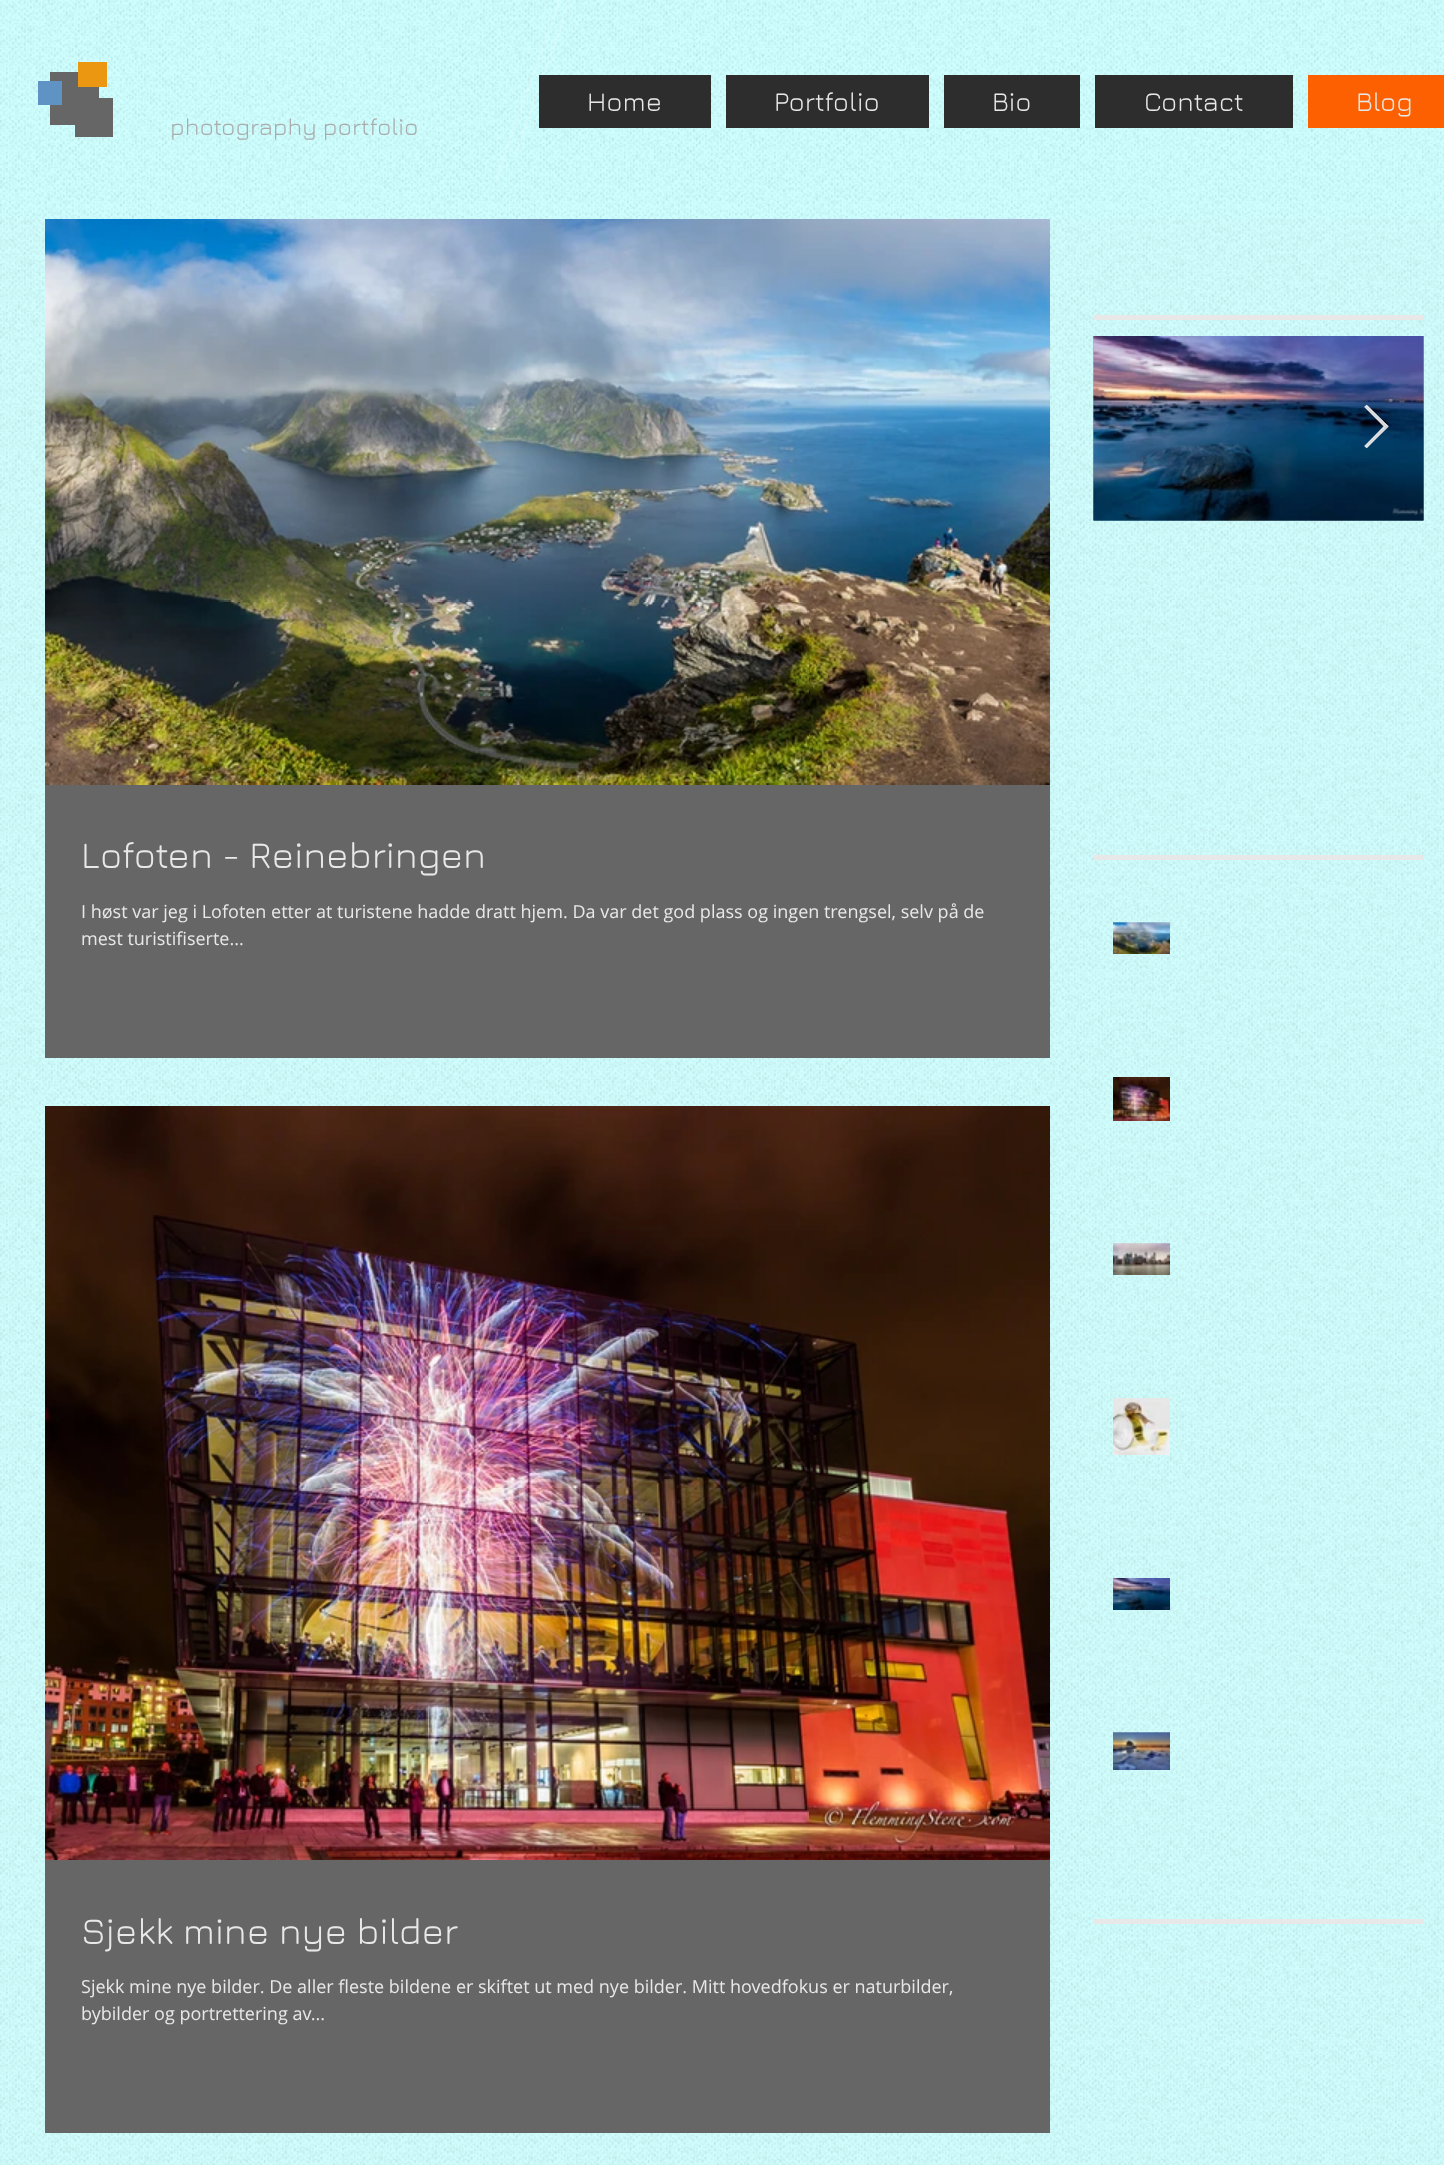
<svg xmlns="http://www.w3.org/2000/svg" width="1444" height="2165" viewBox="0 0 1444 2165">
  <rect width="100%" height="100%" fill="#cfffff"/>
  <image x="0" y="0" width="1444" height="2165" href="img/1.png"/>
  <path d="M75 98h38v39H75z" fill="#666"/>
  <path d="M50 72h49v53H50z" fill="#666"/>
  <path d="M78 62h29v25H78z" fill="#ec9712"/>
  <path d="M38 81h24v24H38z" fill="#5e93c4"/>
  <image x="494" y="0" width="78" height="183" href="img/2.png"/>
  <path d="M539 75h172v53H539z" fill="#2d2d2d"/>
  <path d="M726 75h203v53H726z" fill="#2d2d2d"/>
  <path d="M944 75h136v53H944z" fill="#2d2d2d"/>
  <path d="M1095 75h198v53H1095z" fill="#2d2d2d"/>
  <path d="M1308 75h136v53H1308z" fill="#fc6000"/>
  <path d="M0 219h1444v1946H0z" fill="#e8e8e814"/>
  <path d="M1094 315h330v5H1094z" fill="#e8e8e8"/>
  <image x="1093" y="336" width="331" height="185" href="img/3.png"/>
  <image x="1093" y="336" width="331" height="185" href="img/4.png"/>
  <path d="M1365 407L1367 405L1388 426L1367 448L1365 446L1384 426Z" fill="#e8e8e8e6"/>
  <path d="M1365 407L1366.5 405.5L1388 426.5L1366.5 447.5L1365 446L1384.5 426.5Z" fill="none" stroke="#e8e8e8e6" stroke-width="1.2"/>
  <image x="45" y="219" width="1005" height="566" href="img/5.png"/>
  <path d="M45 785h1005v273H45z" fill="#666"/>
  <image x="45" y="1106" width="1005" height="754" href="img/6.png"/>
  <path d="M45 1860h1005v273H45z" fill="#666"/>
  <path d="M1094 855h330v5H1094z" fill="#e8e8e8"/>
  <image x="1113" y="922" width="57" height="1" href="img/7.png"/>
  <image x="1113" y="922" width="57" height="32" href="img/8.png"/>
  <image x="1113" y="1077" width="57" height="44" href="img/9.png"/>
  <image x="1113" y="1243" width="57" height="1" href="img/10.png"/>
  <image x="1113" y="1243" width="57" height="32" href="img/11.png"/>
  <image x="1113" y="1398" width="57" height="57" href="img/12.png"/>
  <image x="1113" y="1578" width="57" height="32" href="img/13.png"/>
  <image x="1113" y="1732" width="57" height="1" href="img/14.png"/>
  <image x="1113" y="1732" width="57" height="38" href="img/15.png"/>
  <path d="M1094 1919h330v5H1094z" fill="#e8e8e8"/>
  <g font-family="Jura" font-size="27" fill="#e8e8e8">
    <text x="587" y="111">Home</text>
    <text x="774" y="111">Portfolio</text>
    <text x="992" y="111">Bio</text>
    <text x="1144" y="111">Contact</text>
    <text x="1356" y="111">Blog</text>
  </g>
  <text x="170" y="135" font-family="Jura" font-size="24" fill="#ababab">photography portfolio</text>
  <text x="81" y="868" font-family="Jura" font-size="37.5" fill="#e8e8e8">Lofoten - Reinebringen</text>
  <g font-family="Open Sans" font-size="18" fill="#e8e8e8">
    <text x="81" y="918">I høst var jeg i Lofoten etter at turistene hadde dratt hjem. Da var det god plass og ingen trengsel, selv på de</text>
    <text x="81" y="945">mest turistifiserte...</text>
  </g>
  <text x="81" y="1944" font-family="Jura" font-size="37.5" fill="#e8e8e8">Sjekk mine nye bilder</text>
  <g font-family="Open Sans" font-size="18" fill="#e8e8e8">
    <text x="81" y="1993">Sjekk mine nye bilder. De aller fleste bildene er skiftet ut med nye bilder. Mitt hovedfokus er naturbilder,</text>
    <text x="81" y="2020">bybilder og portrettering av...</text>
  </g>
</svg>
